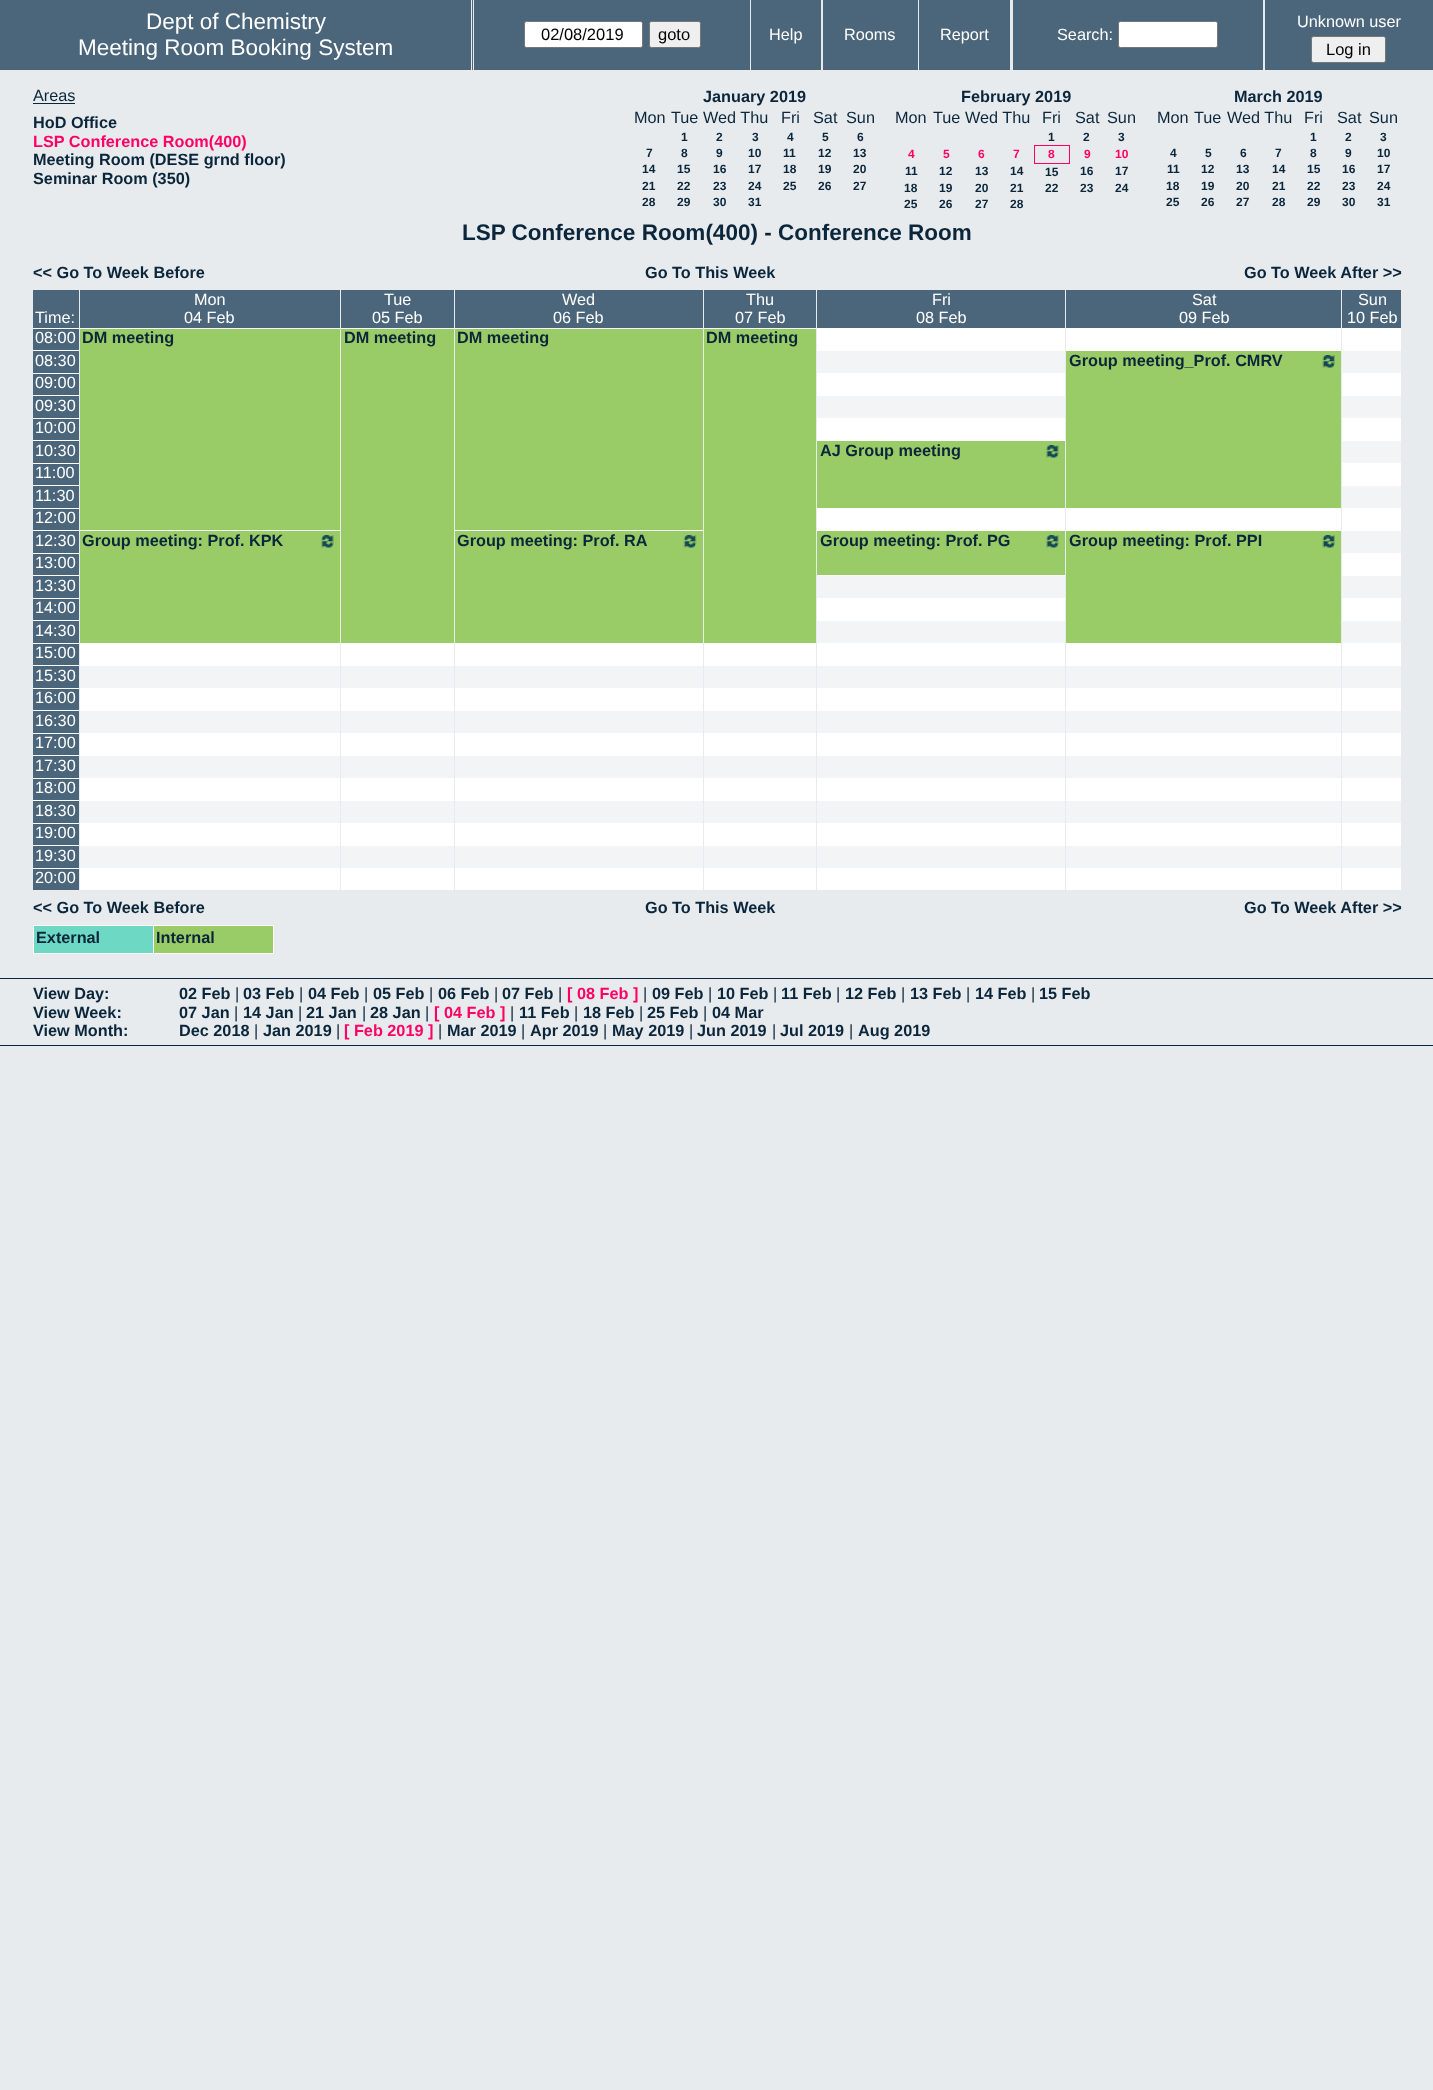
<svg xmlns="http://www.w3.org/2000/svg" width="1433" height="2090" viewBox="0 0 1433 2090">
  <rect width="100%" height="100%" fill="#e7ebee"/>
  <path d="M0 0h473v70H0z" fill="#4b667b"/>
  <path d="M474 0h276v70H474z" fill="#4b667b"/>
  <path d="M471 0h1v70H471z" fill="#e7ebee"/>
  <rect x="524.5" y="21.5" width="118" height="26" rx="2" fill="#fff" stroke="#767676"/>
  <rect x="649.5" y="21.5" width="51" height="26" rx="2" fill="#efefef" stroke="#767676"/>
  <path d="M751 0h70v70H751z" fill="#4b667b"/>
  <path d="M823 0h95v70H823z" fill="#4b667b"/>
  <path d="M919 0h91v70H919z" fill="#4b667b"/>
  <path d="M1013 0h250v70H1013z" fill="#4b667b"/>
  <rect x="1118.5" y="21.5" width="99" height="26" rx="2" fill="#fff" stroke="#767676"/>
  <path d="M1265 0h168v70H1265z" fill="#4b667b"/>
  <rect x="1311.5" y="36.5" width="74" height="26" rx="2" fill="#efefef" stroke="#767676"/>
  <path d="M33 103h42v1H33z" fill="#0b263b"/>
  <path d="M1034 145h36v1H1034z" fill="#f06"/>
  <path d="M1069 145h1v19H1069z" fill="#f06"/>
  <path d="M1034 163h36v1H1034z" fill="#f06"/>
  <path d="M1034 145h1v19H1034z" fill="#f06"/>
  <path d="M33 290h46v38H33z" fill="#4b667b"/>
  <path d="M80 290h260v38H80z" fill="#4b667b"/>
  <path d="M341 290h113v38H341z" fill="#4b667b"/>
  <path d="M455 290h248v38H455z" fill="#4b667b"/>
  <path d="M704 290h112v38H704z" fill="#4b667b"/>
  <path d="M817 290h248v38H817z" fill="#4b667b"/>
  <path d="M1066 290h275v38H1066z" fill="#4b667b"/>
  <path d="M1342 290h59v38H1342z" fill="#4b667b"/>
  <path d="M33 329h46v21H33z" fill="#4b667b"/>
  <path d="M33 328h783v1H33z" fill="#fff"/>
  <path d="M80 329h260v201H80z" fill="#9c6"/>
  <path d="M79 328h1v1H79z" fill="#e7ebee"/>
  <path d="M341 329h113v314H341z" fill="#9c6"/>
  <path d="M340 328h1v1H340z" fill="#e7ebee"/>
  <path d="M455 329h248v201H455z" fill="#9c6"/>
  <path d="M454 328h1v1H454z" fill="#e7ebee"/>
  <path d="M704 329h112v314H704z" fill="#9c6"/>
  <path d="M703 328h1v1H703z" fill="#e7ebee"/>
  <path d="M817 328h248v22H817z" fill="#fff"/>
  <path d="M1066 328h275v22H1066z" fill="#fff"/>
  <path d="M1342 328h59v22H1342z" fill="#fff"/>
  <path d="M817 351h248v22H817z" fill="#f2f4f6"/>
  <path d="M816 350h585v1H816z" fill="#fff"/>
  <path d="M816 350h1v1H816z" fill="#e7ebee"/>
  <path d="M33 351h46v22H33z" fill="#4b667b"/>
  <path d="M33 350h46v1H33z" fill="#fff"/>
  <path d="M1066 351h275v157H1066z" fill="#9c6"/>
  <path d="M1065 350h1v1H1065z" fill="#e7ebee"/>
  <image x="1322" y="355" width="13" height="13" href="img/1.png"/>
  <path d="M1342 351h59v22H1342z" fill="#f2f4f6"/>
  <path d="M1341 350h1v1H1341z" fill="#e7ebee"/>
  <path d="M33 374h46v21H33z" fill="#4b667b"/>
  <path d="M33 373h46v1H33z" fill="#fff"/>
  <path d="M817 373h248v22H817z" fill="#fff"/>
  <path d="M1342 373h59v22H1342z" fill="#fff"/>
  <path d="M33 396h46v22H33z" fill="#4b667b"/>
  <path d="M33 395h46v1H33z" fill="#fff"/>
  <path d="M817 396h248v22H817z" fill="#f2f4f6"/>
  <path d="M816 395h249v1H816z" fill="#fff"/>
  <path d="M816 395h1v1H816z" fill="#e7ebee"/>
  <path d="M1342 396h59v22H1342z" fill="#f2f4f6"/>
  <path d="M1341 395h60v1H1341z" fill="#fff"/>
  <path d="M1341 395h1v1H1341z" fill="#e7ebee"/>
  <path d="M33 419h46v21H33z" fill="#4b667b"/>
  <path d="M33 418h46v1H33z" fill="#fff"/>
  <path d="M817 418h248v22H817z" fill="#fff"/>
  <path d="M1342 418h59v22H1342z" fill="#fff"/>
  <path d="M33 441h46v22H33z" fill="#4b667b"/>
  <path d="M33 440h46v1H33z" fill="#fff"/>
  <path d="M817 441h248v67H817z" fill="#9c6"/>
  <path d="M816 440h249v1H816z" fill="#fff"/>
  <path d="M816 440h1v1H816z" fill="#e7ebee"/>
  <image x="1046" y="445" width="13" height="13" href="img/2.png"/>
  <path d="M1342 441h59v22H1342z" fill="#f2f4f6"/>
  <path d="M1341 440h60v1H1341z" fill="#fff"/>
  <path d="M1341 440h1v1H1341z" fill="#e7ebee"/>
  <path d="M33 464h46v21H33z" fill="#4b667b"/>
  <path d="M33 463h46v1H33z" fill="#fff"/>
  <path d="M1342 463h59v22H1342z" fill="#fff"/>
  <path d="M33 486h46v22H33z" fill="#4b667b"/>
  <path d="M33 485h46v1H33z" fill="#fff"/>
  <path d="M1342 486h59v22H1342z" fill="#f2f4f6"/>
  <path d="M1341 485h60v1H1341z" fill="#fff"/>
  <path d="M1341 485h1v1H1341z" fill="#e7ebee"/>
  <path d="M33 509h46v21H33z" fill="#4b667b"/>
  <path d="M33 508h46v1H33z" fill="#fff"/>
  <path d="M817 508h248v22H817z" fill="#fff"/>
  <path d="M1066 508h275v22H1066z" fill="#fff"/>
  <path d="M1342 508h59v22H1342z" fill="#fff"/>
  <path d="M33 531h46v22H33z" fill="#4b667b"/>
  <path d="M33 530h307v1H33z" fill="#fff"/>
  <path d="M80 531h260v112H80z" fill="#9c6"/>
  <path d="M79 530h1v1H79z" fill="#e7ebee"/>
  <image x="321" y="535" width="13" height="13" href="img/2.png"/>
  <path d="M455 531h248v112H455z" fill="#9c6"/>
  <path d="M454 530h249v1H454z" fill="#fff"/>
  <path d="M454 530h1v1H454z" fill="#e7ebee"/>
  <image x="683" y="535" width="14" height="13" href="img/3.png"/>
  <path d="M817 531h248v44H817z" fill="#9c6"/>
  <path d="M816 530h585v1H816z" fill="#fff"/>
  <path d="M816 530h1v1H816z" fill="#e7ebee"/>
  <image x="1046" y="535" width="13" height="13" href="img/2.png"/>
  <path d="M1066 531h275v112H1066z" fill="#9c6"/>
  <path d="M1065 530h1v1H1065z" fill="#e7ebee"/>
  <image x="1322" y="535" width="13" height="13" href="img/1.png"/>
  <path d="M1342 531h59v22H1342z" fill="#f2f4f6"/>
  <path d="M1341 530h1v1H1341z" fill="#e7ebee"/>
  <path d="M33 554h46v21H33z" fill="#4b667b"/>
  <path d="M33 553h46v1H33z" fill="#fff"/>
  <path d="M1342 553h59v22H1342z" fill="#fff"/>
  <path d="M33 576h46v22H33z" fill="#4b667b"/>
  <path d="M33 575h46v1H33z" fill="#fff"/>
  <path d="M817 576h248v22H817z" fill="#f2f4f6"/>
  <path d="M816 575h249v1H816z" fill="#fff"/>
  <path d="M816 575h1v1H816z" fill="#e7ebee"/>
  <path d="M1342 576h59v22H1342z" fill="#f2f4f6"/>
  <path d="M1341 575h60v1H1341z" fill="#fff"/>
  <path d="M1341 575h1v1H1341z" fill="#e7ebee"/>
  <path d="M33 599h46v21H33z" fill="#4b667b"/>
  <path d="M33 598h46v1H33z" fill="#fff"/>
  <path d="M817 598h248v22H817z" fill="#fff"/>
  <path d="M1342 598h59v22H1342z" fill="#fff"/>
  <path d="M33 621h46v22H33z" fill="#4b667b"/>
  <path d="M33 620h46v1H33z" fill="#fff"/>
  <path d="M817 621h248v22H817z" fill="#f2f4f6"/>
  <path d="M816 620h249v1H816z" fill="#fff"/>
  <path d="M816 620h1v1H816z" fill="#e7ebee"/>
  <path d="M1342 621h59v22H1342z" fill="#f2f4f6"/>
  <path d="M1341 620h60v1H1341z" fill="#fff"/>
  <path d="M1341 620h1v1H1341z" fill="#e7ebee"/>
  <path d="M33 644h46v21H33z" fill="#4b667b"/>
  <path d="M33 643h46v1H33z" fill="#fff"/>
  <path d="M80 643h260v22H80z" fill="#fff"/>
  <path d="M341 643h113v22H341z" fill="#fff"/>
  <path d="M455 643h248v22H455z" fill="#fff"/>
  <path d="M704 643h112v22H704z" fill="#fff"/>
  <path d="M817 643h248v22H817z" fill="#fff"/>
  <path d="M1066 643h275v22H1066z" fill="#fff"/>
  <path d="M1342 643h59v22H1342z" fill="#fff"/>
  <path d="M33 666h46v22H33z" fill="#4b667b"/>
  <path d="M33 665h1368v1H33z" fill="#fff"/>
  <path d="M80 666h260v22H80z" fill="#f2f4f6"/>
  <path d="M79 665h1v1H79z" fill="#e7ebee"/>
  <path d="M341 666h113v22H341z" fill="#f2f4f6"/>
  <path d="M340 665h1v1H340z" fill="#e7ebee"/>
  <path d="M455 666h248v22H455z" fill="#f2f4f6"/>
  <path d="M454 665h1v1H454z" fill="#e7ebee"/>
  <path d="M704 666h112v22H704z" fill="#f2f4f6"/>
  <path d="M703 665h1v1H703z" fill="#e7ebee"/>
  <path d="M817 666h248v22H817z" fill="#f2f4f6"/>
  <path d="M816 665h1v1H816z" fill="#e7ebee"/>
  <path d="M1066 666h275v22H1066z" fill="#f2f4f6"/>
  <path d="M1065 665h1v1H1065z" fill="#e7ebee"/>
  <path d="M1342 666h59v22H1342z" fill="#f2f4f6"/>
  <path d="M1341 665h1v1H1341z" fill="#e7ebee"/>
  <path d="M33 689h46v21H33z" fill="#4b667b"/>
  <path d="M33 688h46v1H33z" fill="#fff"/>
  <path d="M80 688h260v22H80z" fill="#fff"/>
  <path d="M341 688h113v22H341z" fill="#fff"/>
  <path d="M455 688h248v22H455z" fill="#fff"/>
  <path d="M704 688h112v22H704z" fill="#fff"/>
  <path d="M817 688h248v22H817z" fill="#fff"/>
  <path d="M1066 688h275v22H1066z" fill="#fff"/>
  <path d="M1342 688h59v22H1342z" fill="#fff"/>
  <path d="M33 711h46v22H33z" fill="#4b667b"/>
  <path d="M33 710h1368v1H33z" fill="#fff"/>
  <path d="M80 711h260v22H80z" fill="#f2f4f6"/>
  <path d="M79 710h1v1H79z" fill="#e7ebee"/>
  <path d="M341 711h113v22H341z" fill="#f2f4f6"/>
  <path d="M340 710h1v1H340z" fill="#e7ebee"/>
  <path d="M455 711h248v22H455z" fill="#f2f4f6"/>
  <path d="M454 710h1v1H454z" fill="#e7ebee"/>
  <path d="M704 711h112v22H704z" fill="#f2f4f6"/>
  <path d="M703 710h1v1H703z" fill="#e7ebee"/>
  <path d="M817 711h248v22H817z" fill="#f2f4f6"/>
  <path d="M816 710h1v1H816z" fill="#e7ebee"/>
  <path d="M1066 711h275v22H1066z" fill="#f2f4f6"/>
  <path d="M1065 710h1v1H1065z" fill="#e7ebee"/>
  <path d="M1342 711h59v22H1342z" fill="#f2f4f6"/>
  <path d="M1341 710h1v1H1341z" fill="#e7ebee"/>
  <path d="M33 734h46v21H33z" fill="#4b667b"/>
  <path d="M33 733h46v1H33z" fill="#fff"/>
  <path d="M80 733h260v22H80z" fill="#fff"/>
  <path d="M341 733h113v22H341z" fill="#fff"/>
  <path d="M455 733h248v22H455z" fill="#fff"/>
  <path d="M704 733h112v22H704z" fill="#fff"/>
  <path d="M817 733h248v22H817z" fill="#fff"/>
  <path d="M1066 733h275v22H1066z" fill="#fff"/>
  <path d="M1342 733h59v22H1342z" fill="#fff"/>
  <path d="M33 756h46v22H33z" fill="#4b667b"/>
  <path d="M33 755h1368v1H33z" fill="#fff"/>
  <path d="M80 756h260v22H80z" fill="#f2f4f6"/>
  <path d="M79 755h1v1H79z" fill="#e7ebee"/>
  <path d="M341 756h113v22H341z" fill="#f2f4f6"/>
  <path d="M340 755h1v1H340z" fill="#e7ebee"/>
  <path d="M455 756h248v22H455z" fill="#f2f4f6"/>
  <path d="M454 755h1v1H454z" fill="#e7ebee"/>
  <path d="M704 756h112v22H704z" fill="#f2f4f6"/>
  <path d="M703 755h1v1H703z" fill="#e7ebee"/>
  <path d="M817 756h248v22H817z" fill="#f2f4f6"/>
  <path d="M816 755h1v1H816z" fill="#e7ebee"/>
  <path d="M1066 756h275v22H1066z" fill="#f2f4f6"/>
  <path d="M1065 755h1v1H1065z" fill="#e7ebee"/>
  <path d="M1342 756h59v22H1342z" fill="#f2f4f6"/>
  <path d="M1341 755h1v1H1341z" fill="#e7ebee"/>
  <path d="M33 779h46v21H33z" fill="#4b667b"/>
  <path d="M33 778h46v1H33z" fill="#fff"/>
  <path d="M80 778h260v22H80z" fill="#fff"/>
  <path d="M341 778h113v22H341z" fill="#fff"/>
  <path d="M455 778h248v22H455z" fill="#fff"/>
  <path d="M704 778h112v22H704z" fill="#fff"/>
  <path d="M817 778h248v22H817z" fill="#fff"/>
  <path d="M1066 778h275v22H1066z" fill="#fff"/>
  <path d="M1342 778h59v22H1342z" fill="#fff"/>
  <path d="M33 801h46v22H33z" fill="#4b667b"/>
  <path d="M33 800h1368v1H33z" fill="#fff"/>
  <path d="M80 801h260v22H80z" fill="#f2f4f6"/>
  <path d="M79 800h1v1H79z" fill="#e7ebee"/>
  <path d="M341 801h113v22H341z" fill="#f2f4f6"/>
  <path d="M340 800h1v1H340z" fill="#e7ebee"/>
  <path d="M455 801h248v22H455z" fill="#f2f4f6"/>
  <path d="M454 800h1v1H454z" fill="#e7ebee"/>
  <path d="M704 801h112v22H704z" fill="#f2f4f6"/>
  <path d="M703 800h1v1H703z" fill="#e7ebee"/>
  <path d="M817 801h248v22H817z" fill="#f2f4f6"/>
  <path d="M816 800h1v1H816z" fill="#e7ebee"/>
  <path d="M1066 801h275v22H1066z" fill="#f2f4f6"/>
  <path d="M1065 800h1v1H1065z" fill="#e7ebee"/>
  <path d="M1342 801h59v22H1342z" fill="#f2f4f6"/>
  <path d="M1341 800h1v1H1341z" fill="#e7ebee"/>
  <path d="M33 824h46v21H33z" fill="#4b667b"/>
  <path d="M33 823h46v1H33z" fill="#fff"/>
  <path d="M80 823h260v22H80z" fill="#fff"/>
  <path d="M341 823h113v22H341z" fill="#fff"/>
  <path d="M455 823h248v22H455z" fill="#fff"/>
  <path d="M704 823h112v22H704z" fill="#fff"/>
  <path d="M817 823h248v22H817z" fill="#fff"/>
  <path d="M1066 823h275v22H1066z" fill="#fff"/>
  <path d="M1342 823h59v22H1342z" fill="#fff"/>
  <path d="M33 846h46v22H33z" fill="#4b667b"/>
  <path d="M33 845h1368v1H33z" fill="#fff"/>
  <path d="M80 846h260v22H80z" fill="#f2f4f6"/>
  <path d="M79 845h1v1H79z" fill="#e7ebee"/>
  <path d="M341 846h113v22H341z" fill="#f2f4f6"/>
  <path d="M340 845h1v1H340z" fill="#e7ebee"/>
  <path d="M455 846h248v22H455z" fill="#f2f4f6"/>
  <path d="M454 845h1v1H454z" fill="#e7ebee"/>
  <path d="M704 846h112v22H704z" fill="#f2f4f6"/>
  <path d="M703 845h1v1H703z" fill="#e7ebee"/>
  <path d="M817 846h248v22H817z" fill="#f2f4f6"/>
  <path d="M816 845h1v1H816z" fill="#e7ebee"/>
  <path d="M1066 846h275v22H1066z" fill="#f2f4f6"/>
  <path d="M1065 845h1v1H1065z" fill="#e7ebee"/>
  <path d="M1342 846h59v22H1342z" fill="#f2f4f6"/>
  <path d="M1341 845h1v1H1341z" fill="#e7ebee"/>
  <path d="M33 869h46v21H33z" fill="#4b667b"/>
  <path d="M33 868h46v1H33z" fill="#fff"/>
  <path d="M80 868h260v22H80z" fill="#fff"/>
  <path d="M341 868h113v22H341z" fill="#fff"/>
  <path d="M455 868h248v22H455z" fill="#fff"/>
  <path d="M704 868h112v22H704z" fill="#fff"/>
  <path d="M817 868h248v22H817z" fill="#fff"/>
  <path d="M1066 868h275v22H1066z" fill="#fff"/>
  <path d="M1342 868h59v22H1342z" fill="#fff"/>
  <path d="M34 926h119v27H34z" fill="#6dd9c4"/>
  <path d="M153 925h121v1H153z" fill="#fff"/>
  <path d="M273 925h1v29H273z" fill="#fff"/>
  <path d="M153 953h121v1H153z" fill="#fff"/>
  <path d="M153 925h1v29H153z" fill="#fff"/>
  <path d="M33 925h121v1H33z" fill="#fff"/>
  <path d="M33 953h121v1H33z" fill="#fff"/>
  <path d="M33 925h1v29H33z" fill="#fff"/>
  <path d="M154 926h119v27H154z" fill="#9c6"/>
  <path d="M0 978h1433v1H0z" fill="#0b263b"/>
  <path d="M0 1045h1433v1H0z" fill="#0b263b"/>
  <g font-family="Liberation Sans" font-size="22.5" fill="#fff">
    <text x="146" y="29">Dept of Chemistry</text>
    <text x="78" y="55">Meeting Room Booking System</text>
  </g>
  <g font-family="Liberation Sans" font-size="16.5" fill="#000">
    <text x="541" y="40">02/08/2019</text>
    <text x="658" y="40">goto</text>
  </g>
  <g font-family="Liberation Sans" font-size="16.25" fill="#fff">
    <text x="769" y="40">Help</text>
    <text x="844" y="40">Rooms</text>
    <text x="940" y="40">Report</text>
    <text x="1057" y="40">Search:</text>
    <text x="1297" y="27">Unknown user</text>
  </g>
  <text x="1326" y="55" font-family="Liberation Sans" font-size="16.5" fill="#000">Log in</text>
  <text x="33" y="101" font-family="Liberation Sans" font-size="16.25" fill="#0b263b">Areas</text>
  <text x="33" y="128" font-family="Liberation Sans" font-size="16.25" font-weight="bold" fill="#0b263b">HoD Office</text>
  <text x="33" y="147" font-family="Liberation Sans" font-size="16.25" font-weight="bold" fill="#f06">LSP Conference Room(400)</text>
  <g font-family="Liberation Sans" font-size="16.25" font-weight="bold" fill="#0b263b">
    <text x="33" y="165">Meeting Room (DESE grnd floor)</text>
    <text x="33" y="184">Seminar Room (350)</text>
    <text x="703" y="102">January 2019</text>
  </g>
  <g font-family="Liberation Sans" font-size="16.25" fill="#0b263b">
    <text x="634" y="123">Mon</text>
    <text x="671" y="123">Tue</text>
    <text x="703" y="123">Wed Thu</text>
    <text x="781" y="123">Fri</text>
    <text x="813" y="123">Sat</text>
    <text x="846" y="123">Sun</text>
  </g>
  <g font-family="Liberation Sans" font-size="12" font-weight="bold" fill="#0b263b">
    <text x="681" y="141">1</text>
    <text x="716" y="141">2</text>
    <text x="752" y="141">3</text>
    <text x="787" y="141">4</text>
    <text x="822" y="141">5</text>
    <text x="857" y="141">6</text>
    <text x="646" y="157">7</text>
    <text x="681" y="157">8</text>
    <text x="716" y="157">9</text>
    <text x="748" y="157">10</text>
    <text x="783" y="157">11</text>
    <text x="818" y="157">12</text>
    <text x="853" y="157">13</text>
    <text x="642" y="173">14</text>
    <text x="677" y="173">15</text>
    <text x="713" y="173">16</text>
    <text x="748" y="173">17</text>
    <text x="783" y="173">18</text>
    <text x="818" y="173">19</text>
    <text x="853" y="173">20</text>
    <text x="642" y="190">21</text>
    <text x="677" y="190">22</text>
    <text x="713" y="190">23</text>
    <text x="748" y="190">24</text>
    <text x="783" y="190">25</text>
    <text x="818" y="190">26</text>
    <text x="853" y="190">27</text>
    <text x="642" y="206">28</text>
    <text x="677" y="206">29</text>
    <text x="713" y="206">30</text>
    <text x="748" y="206">31</text>
  </g>
  <text x="961" y="102" font-family="Liberation Sans" font-size="16.25" font-weight="bold" fill="#0b263b">February 2019</text>
  <g font-family="Liberation Sans" font-size="16.25" fill="#0b263b">
    <text x="895" y="123">Mon</text>
    <text x="933" y="123">Tue</text>
    <text x="965" y="123">Wed Thu</text>
    <text x="1042" y="123">Fri</text>
    <text x="1075" y="123">Sat</text>
    <text x="1107" y="123">Sun</text>
  </g>
  <g font-family="Liberation Sans" font-size="12" font-weight="bold" fill="#0b263b">
    <text x="1048" y="141">1</text>
    <text x="1083" y="141">2</text>
    <text x="1118" y="141">3</text>
  </g>
  <g font-family="Liberation Sans" font-size="12" font-weight="bold" fill="#f06">
    <text x="908" y="158">4</text>
    <text x="943" y="158">5</text>
    <text x="978" y="158">6</text>
    <text x="1013" y="158">7</text>
    <text x="1048" y="158">8</text>
    <text x="1084" y="158">9</text>
    <text x="1115" y="158">10</text>
  </g>
  <g font-family="Liberation Sans" font-size="12" font-weight="bold" fill="#0b263b">
    <text x="905" y="175">11</text>
    <text x="939" y="175">12</text>
    <text x="975" y="175">13</text>
    <text x="1010" y="175">14</text>
    <text x="1045" y="176">15</text>
    <text x="1080" y="175">16</text>
    <text x="1115" y="175">17</text>
    <text x="904" y="192">18</text>
    <text x="939" y="192">19</text>
    <text x="975" y="192">20</text>
    <text x="1010" y="192">21</text>
    <text x="1045" y="192">22</text>
    <text x="1080" y="192">23</text>
    <text x="1115" y="192">24</text>
    <text x="904" y="208">25</text>
    <text x="939" y="208">26</text>
    <text x="975" y="208">27</text>
    <text x="1010" y="208">28</text>
  </g>
  <text x="1234" y="102" font-family="Liberation Sans" font-size="16.25" font-weight="bold" fill="#0b263b">March 2019</text>
  <g font-family="Liberation Sans" font-size="16.25" fill="#0b263b">
    <text x="1157" y="123">Mon</text>
    <text x="1194" y="123">Tue</text>
    <text x="1227" y="123">Wed Thu</text>
    <text x="1304" y="123">Fri</text>
    <text x="1337" y="123">Sat</text>
    <text x="1369" y="123">Sun</text>
  </g>
  <g font-family="Liberation Sans" font-size="12" font-weight="bold" fill="#0b263b">
    <text x="1310" y="141">1</text>
    <text x="1345" y="141">2</text>
    <text x="1380" y="141">3</text>
    <text x="1170" y="157">4</text>
    <text x="1205" y="157">5</text>
    <text x="1240" y="157">6</text>
    <text x="1275" y="157">7</text>
    <text x="1310" y="157">8</text>
    <text x="1345" y="157">9</text>
    <text x="1377" y="157">10</text>
    <text x="1167" y="173">11</text>
    <text x="1201" y="173">12</text>
    <text x="1236" y="173">13</text>
    <text x="1272" y="173">14</text>
    <text x="1307" y="173">15</text>
    <text x="1342" y="173">16</text>
    <text x="1377" y="173">17</text>
    <text x="1166" y="190">18</text>
    <text x="1201" y="190">19</text>
    <text x="1236" y="190">20</text>
    <text x="1272" y="190">21</text>
    <text x="1307" y="190">22</text>
    <text x="1342" y="190">23</text>
    <text x="1377" y="190">24</text>
    <text x="1166" y="206">25</text>
    <text x="1201" y="206">26</text>
    <text x="1236" y="206">27</text>
    <text x="1272" y="206">28</text>
    <text x="1307" y="206">29</text>
    <text x="1342" y="206">30</text>
    <text x="1377" y="206">31</text>
  </g>
  <text x="462" y="240" font-family="Liberation Sans" font-size="22.5" font-weight="bold" fill="#0b263b">LSP Conference Room(400) - Conference Room</text>
  <g font-family="Liberation Sans" font-size="16.25" font-weight="bold" fill="#0b263b">
    <text x="33" y="278">&lt;&lt; Go To Week Before</text>
    <text x="645" y="278">Go To This Week</text>
    <text x="1244" y="278">Go To Week After &gt;&gt;</text>
  </g>
  <g font-family="Liberation Sans" font-size="16.25" fill="#fff">
    <text x="35" y="323">Time:</text>
    <text x="194" y="305">Mon</text>
    <text x="184" y="323">04 Feb</text>
    <text x="384" y="305">Tue</text>
    <text x="372" y="323">05 Feb</text>
    <text x="562" y="305">Wed</text>
    <text x="553" y="323">06 Feb</text>
    <text x="746" y="305">Thu</text>
    <text x="735" y="323">07 Feb</text>
    <text x="932" y="305">Fri</text>
    <text x="916" y="323">08 Feb</text>
    <text x="1192" y="305">Sat</text>
    <text x="1179" y="323">09 Feb</text>
    <text x="1358" y="305">Sun</text>
    <text x="1347" y="323">10 Feb</text>
    <text x="35" y="343">08:00</text>
  </g>
  <g font-family="Liberation Sans" font-size="16.25" font-weight="bold" fill="#0b263b">
    <text x="82" y="343">DM meeting</text>
    <text x="344" y="343">DM meeting</text>
    <text x="457" y="343">DM meeting</text>
    <text x="706" y="343">DM meeting</text>
  </g>
  <text x="35" y="366" font-family="Liberation Sans" font-size="16.25" fill="#fff">08:30</text>
  <text x="1069" y="366" font-family="Liberation Sans" font-size="16.25" font-weight="bold" fill="#0b263b">Group meeting_Prof. CMRV</text>
  <g font-family="Liberation Sans" font-size="16.25" fill="#fff">
    <text x="35" y="388">09:00</text>
    <text x="35" y="411">09:30</text>
    <text x="35" y="433">10:00</text>
    <text x="35" y="456">10:30</text>
  </g>
  <text x="820" y="456" font-family="Liberation Sans" font-size="16.25" font-weight="bold" fill="#0b263b">AJ Group meeting</text>
  <g font-family="Liberation Sans" font-size="16.25" fill="#fff">
    <text x="35" y="478">11:00</text>
    <text x="35" y="501">11:30</text>
    <text x="35" y="523">12:00</text>
    <text x="35" y="546">12:30</text>
  </g>
  <g font-family="Liberation Sans" font-size="16.25" font-weight="bold" fill="#0b263b">
    <text x="82" y="546">Group meeting: Prof. KPK</text>
    <text x="457" y="546">Group meeting: Prof. RA</text>
    <text x="820" y="546">Group meeting: Prof. PG</text>
    <text x="1069" y="546">Group meeting: Prof. PPI</text>
  </g>
  <g font-family="Liberation Sans" font-size="16.25" fill="#fff">
    <text x="35" y="568">13:00</text>
    <text x="35" y="591">13:30</text>
    <text x="35" y="613">14:00</text>
    <text x="35" y="636">14:30</text>
    <text x="35" y="658">15:00</text>
    <text x="35" y="681">15:30</text>
    <text x="35" y="703">16:00</text>
    <text x="35" y="726">16:30</text>
    <text x="35" y="748">17:00</text>
    <text x="35" y="771">17:30</text>
    <text x="35" y="793">18:00</text>
    <text x="35" y="816">18:30</text>
    <text x="35" y="838">19:00</text>
    <text x="35" y="861">19:30</text>
    <text x="35" y="883">20:00</text>
  </g>
  <g font-family="Liberation Sans" font-size="16.25" font-weight="bold" fill="#0b263b">
    <text x="33" y="913">&lt;&lt; Go To Week Before</text>
    <text x="645" y="913">Go To This Week</text>
    <text x="1244" y="913">Go To Week After &gt;&gt;</text>
    <text x="36" y="943">External</text>
    <text x="156" y="943">Internal</text>
    <text x="33" y="999">View Day:</text>
    <text x="179" y="999">02 Feb</text>
  </g>
  <text x="235" y="999" font-family="Liberation Sans" font-size="16.25" fill="#0b263b">|</text>
  <text x="243" y="999" font-family="Liberation Sans" font-size="16.25" font-weight="bold" fill="#0b263b">03 Feb</text>
  <text x="299" y="999" font-family="Liberation Sans" font-size="16.25" fill="#0b263b">|</text>
  <text x="308" y="999" font-family="Liberation Sans" font-size="16.25" font-weight="bold" fill="#0b263b">04 Feb</text>
  <text x="364" y="999" font-family="Liberation Sans" font-size="16.25" fill="#0b263b">|</text>
  <text x="373" y="999" font-family="Liberation Sans" font-size="16.25" font-weight="bold" fill="#0b263b">05 Feb</text>
  <text x="429" y="999" font-family="Liberation Sans" font-size="16.25" fill="#0b263b">|</text>
  <text x="438" y="999" font-family="Liberation Sans" font-size="16.25" font-weight="bold" fill="#0b263b">06 Feb</text>
  <text x="494" y="999" font-family="Liberation Sans" font-size="16.25" fill="#0b263b">|</text>
  <text x="502" y="999" font-family="Liberation Sans" font-size="16.25" font-weight="bold" fill="#0b263b">07 Feb</text>
  <text x="558" y="999" font-family="Liberation Sans" font-size="16.25" fill="#0b263b">|</text>
  <text x="567" y="999" font-family="Liberation Sans" font-size="16.25" font-weight="bold" fill="#f06">[ 08 Feb ]</text>
  <text x="643" y="999" font-family="Liberation Sans" font-size="16.25" fill="#0b263b">|</text>
  <text x="652" y="999" font-family="Liberation Sans" font-size="16.25" font-weight="bold" fill="#0b263b">09 Feb</text>
  <text x="708" y="999" font-family="Liberation Sans" font-size="16.25" fill="#0b263b">|</text>
  <text x="717" y="999" font-family="Liberation Sans" font-size="16.25" font-weight="bold" fill="#0b263b">10 Feb</text>
  <text x="773" y="999" font-family="Liberation Sans" font-size="16.25" fill="#0b263b">|</text>
  <text x="781" y="999" font-family="Liberation Sans" font-size="16.25" font-weight="bold" fill="#0b263b">11 Feb</text>
  <text x="836" y="999" font-family="Liberation Sans" font-size="16.25" fill="#0b263b">|</text>
  <text x="845" y="999" font-family="Liberation Sans" font-size="16.25" font-weight="bold" fill="#0b263b">12 Feb</text>
  <text x="901" y="999" font-family="Liberation Sans" font-size="16.25" fill="#0b263b">|</text>
  <text x="910" y="999" font-family="Liberation Sans" font-size="16.25" font-weight="bold" fill="#0b263b">13 Feb</text>
  <text x="966" y="999" font-family="Liberation Sans" font-size="16.25" fill="#0b263b">|</text>
  <text x="975" y="999" font-family="Liberation Sans" font-size="16.25" font-weight="bold" fill="#0b263b">14 Feb</text>
  <text x="1031" y="999" font-family="Liberation Sans" font-size="16.25" fill="#0b263b">|</text>
  <g font-family="Liberation Sans" font-size="16.25" font-weight="bold" fill="#0b263b">
    <text x="1039" y="999">15 Feb</text>
    <text x="33" y="1018">View Week:</text>
    <text x="179" y="1018">07 Jan</text>
  </g>
  <text x="234" y="1018" font-family="Liberation Sans" font-size="16.25" fill="#0b263b">|</text>
  <text x="243" y="1018" font-family="Liberation Sans" font-size="16.25" font-weight="bold" fill="#0b263b">14 Jan</text>
  <text x="298" y="1018" font-family="Liberation Sans" font-size="16.25" fill="#0b263b">|</text>
  <text x="306" y="1018" font-family="Liberation Sans" font-size="16.25" font-weight="bold" fill="#0b263b">21 Jan</text>
  <text x="362" y="1018" font-family="Liberation Sans" font-size="16.25" fill="#0b263b">|</text>
  <text x="370" y="1018" font-family="Liberation Sans" font-size="16.25" font-weight="bold" fill="#0b263b">28 Jan</text>
  <text x="425" y="1018" font-family="Liberation Sans" font-size="16.25" fill="#0b263b">|</text>
  <text x="434" y="1018" font-family="Liberation Sans" font-size="16.25" font-weight="bold" fill="#f06">[ 04 Feb ]</text>
  <text x="510" y="1018" font-family="Liberation Sans" font-size="16.25" fill="#0b263b">|</text>
  <text x="519" y="1018" font-family="Liberation Sans" font-size="16.25" font-weight="bold" fill="#0b263b">11 Feb</text>
  <text x="574" y="1018" font-family="Liberation Sans" font-size="16.25" fill="#0b263b">|</text>
  <text x="583" y="1018" font-family="Liberation Sans" font-size="16.25" font-weight="bold" fill="#0b263b">18 Feb</text>
  <text x="639" y="1018" font-family="Liberation Sans" font-size="16.25" fill="#0b263b">|</text>
  <text x="647" y="1018" font-family="Liberation Sans" font-size="16.25" font-weight="bold" fill="#0b263b">25 Feb</text>
  <text x="703" y="1018" font-family="Liberation Sans" font-size="16.25" fill="#0b263b">|</text>
  <g font-family="Liberation Sans" font-size="16.25" font-weight="bold" fill="#0b263b">
    <text x="712" y="1018">04 Mar</text>
    <text x="33" y="1036">View Month:</text>
    <text x="179" y="1036">Dec 2018</text>
  </g>
  <text x="254" y="1036" font-family="Liberation Sans" font-size="16.25" fill="#0b263b">|</text>
  <text x="263" y="1036" font-family="Liberation Sans" font-size="16.25" font-weight="bold" fill="#0b263b">Jan 2019</text>
  <text x="336" y="1036" font-family="Liberation Sans" font-size="16.25" fill="#0b263b">|</text>
  <text x="344" y="1036" font-family="Liberation Sans" font-size="16.25" font-weight="bold" fill="#f06">[ Feb 2019 ]</text>
  <text x="438" y="1036" font-family="Liberation Sans" font-size="16.25" fill="#0b263b">|</text>
  <text x="447" y="1036" font-family="Liberation Sans" font-size="16.25" font-weight="bold" fill="#0b263b">Mar 2019</text>
  <text x="521" y="1036" font-family="Liberation Sans" font-size="16.25" fill="#0b263b">|</text>
  <text x="530" y="1036" font-family="Liberation Sans" font-size="16.25" font-weight="bold" fill="#0b263b">Apr 2019</text>
  <text x="603" y="1036" font-family="Liberation Sans" font-size="16.25" fill="#0b263b">|</text>
  <text x="612" y="1036" font-family="Liberation Sans" font-size="16.25" font-weight="bold" fill="#0b263b">May 2019</text>
  <text x="689" y="1036" font-family="Liberation Sans" font-size="16.25" fill="#0b263b">|</text>
  <text x="697" y="1036" font-family="Liberation Sans" font-size="16.25" font-weight="bold" fill="#0b263b">Jun 2019</text>
  <text x="772" y="1036" font-family="Liberation Sans" font-size="16.25" fill="#0b263b">|</text>
  <text x="780" y="1036" font-family="Liberation Sans" font-size="16.25" font-weight="bold" fill="#0b263b">Jul 2019</text>
  <text x="849" y="1036" font-family="Liberation Sans" font-size="16.25" fill="#0b263b">|</text>
  <text x="858" y="1036" font-family="Liberation Sans" font-size="16.25" font-weight="bold" fill="#0b263b">Aug 2019</text>
</svg>
